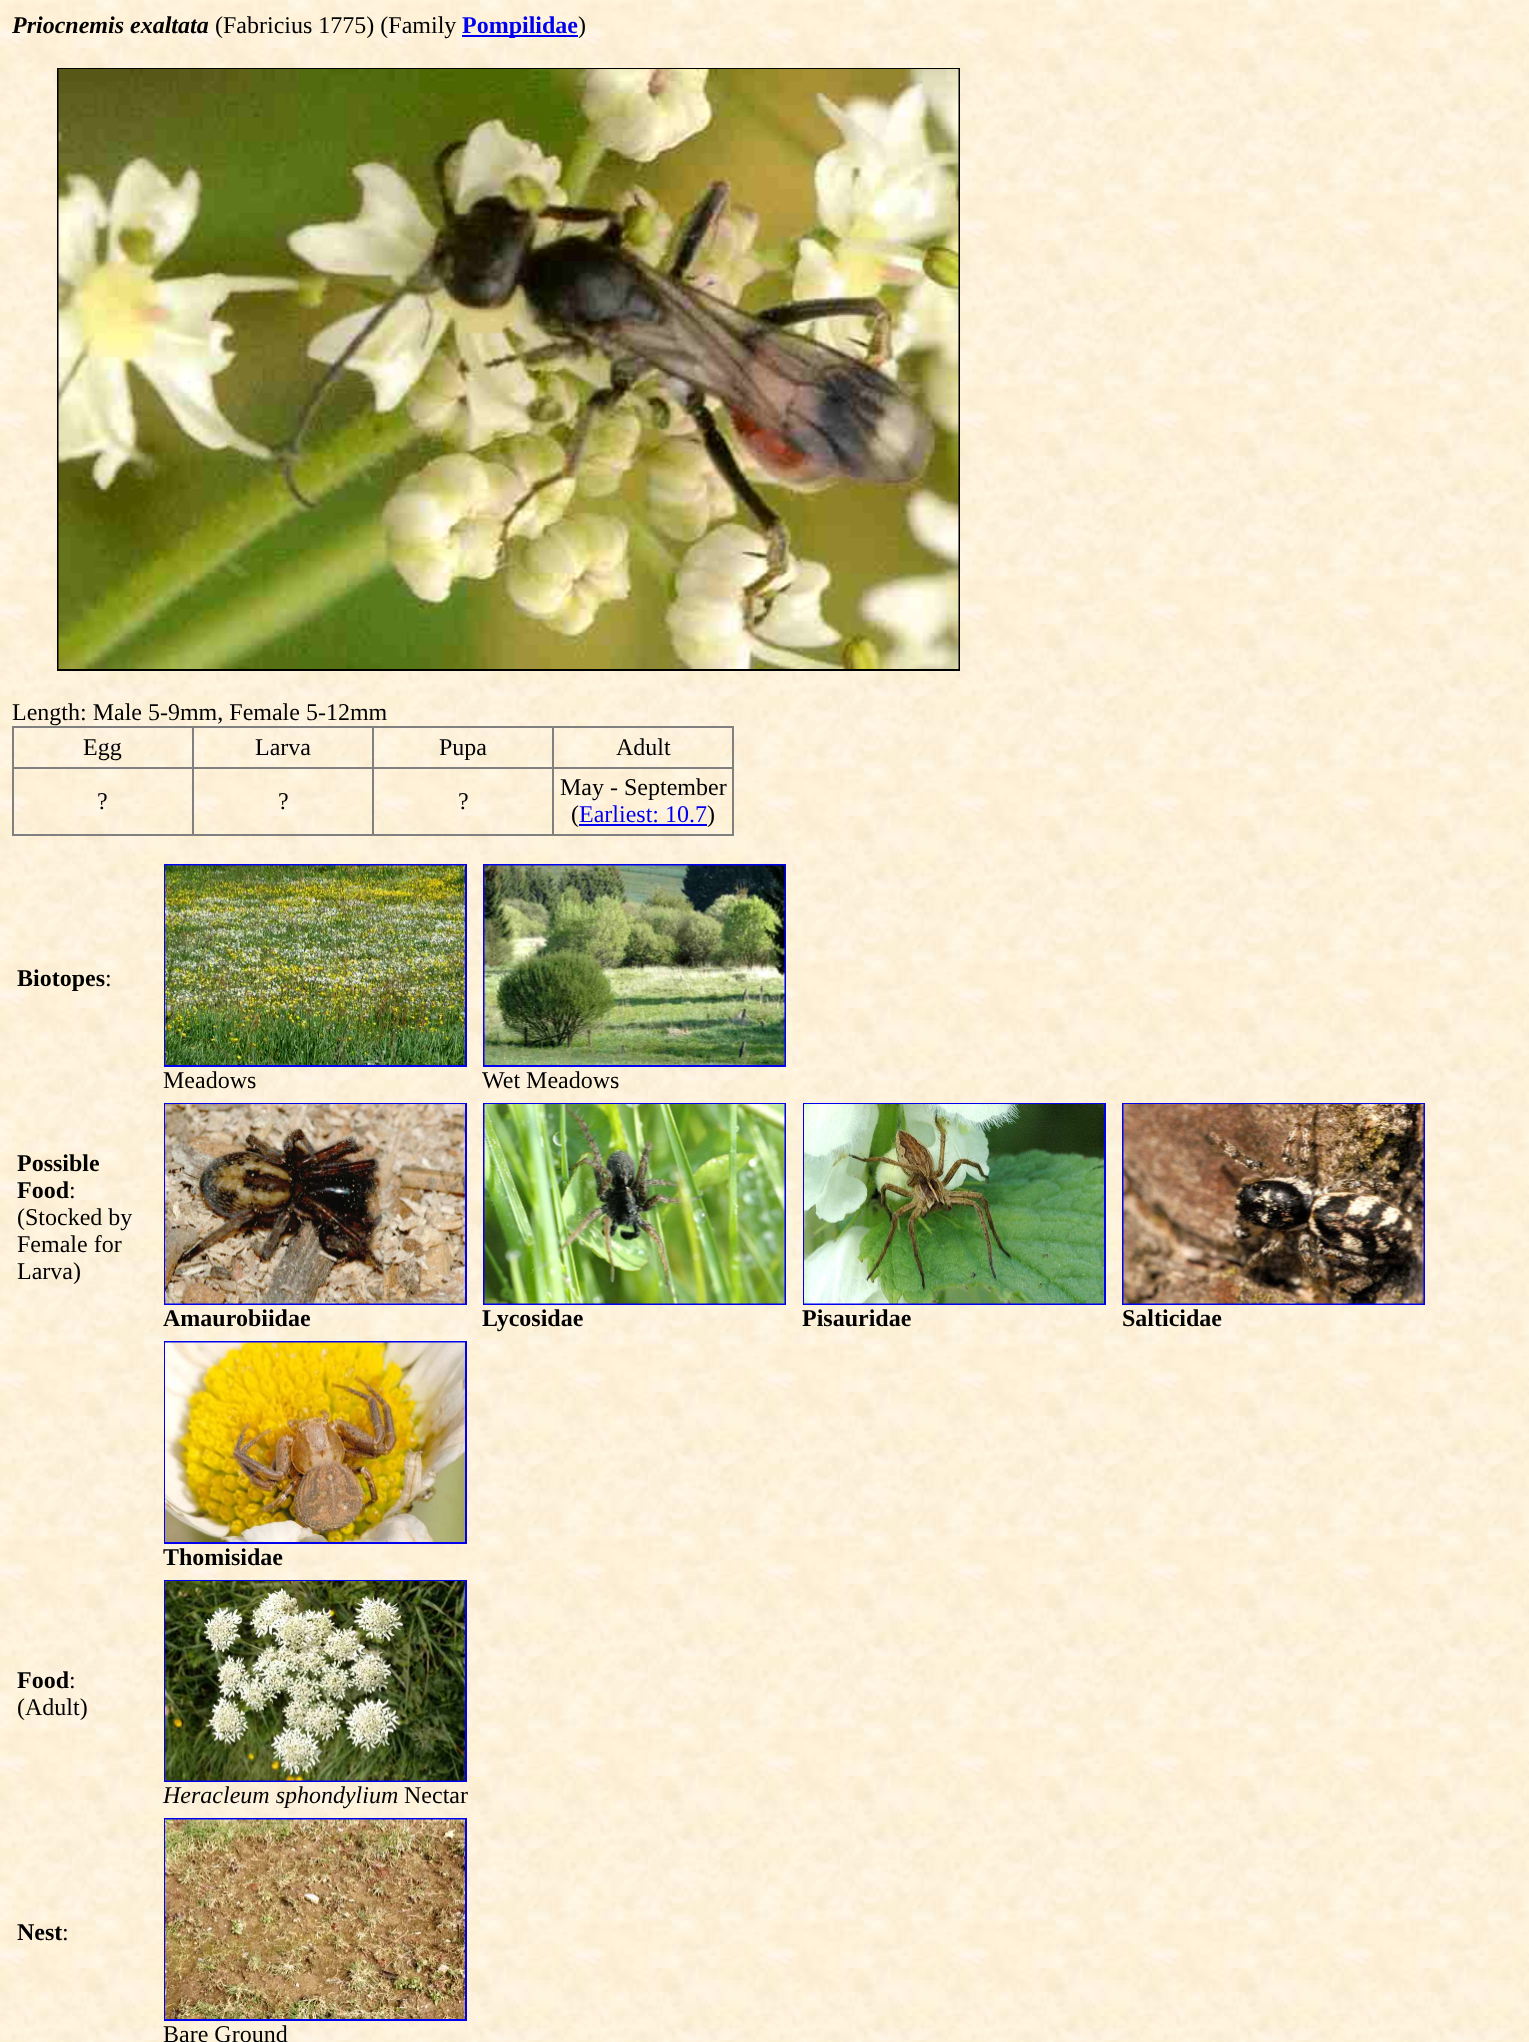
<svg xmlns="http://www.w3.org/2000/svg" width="1529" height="2042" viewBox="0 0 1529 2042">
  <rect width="100%" height="100%" fill="#fff"/>
  <image x="0" y="0" width="1529" height="2042" href="img/1.png"/>
  <path d="M462 35h116v2H462z" fill="#00e"/>
  <path d="M58 69h901v601H58z" fill="none" stroke="#000" stroke-width="2"/>
  <image x="58" y="69" width="901" height="600" href="img/2.png"/>
  <path d="M12 726h722v2H12z" fill="#808080"/>
  <path d="M732 726h2v110H732z" fill="#808080"/>
  <path d="M12 834h722v2H12z" fill="#808080"/>
  <path d="M12 726h2v110H12z" fill="#808080"/>
  <path d="M552 767h182v2H552z" fill="#808080"/>
  <path d="M552 767h2v69H552z" fill="#808080"/>
  <path d="M372 767h182v2H372z" fill="#808080"/>
  <path d="M372 767h2v69H372z" fill="#808080"/>
  <path d="M192 767h182v2H192z" fill="#808080"/>
  <path d="M192 767h2v69H192z" fill="#808080"/>
  <path d="M12 767h182v2H12z" fill="#808080"/>
  <path d="M192 726h2v42H192z" fill="#808080"/>
  <path d="M372 726h2v42H372z" fill="#808080"/>
  <path d="M552 726h2v42H552z" fill="#808080"/>
  <path d="M579 824h128v2H579z" fill="#00e"/>
  <path d="M165 865h301v201H165z" fill="none" stroke="#00e" stroke-width="2"/>
  <image x="165" y="865" width="300" height="200" href="img/3.png"/>
  <path d="M484 865h301v201H484z" fill="none" stroke="#00e" stroke-width="2"/>
  <image x="484" y="865" width="301" height="200" href="img/4.png"/>
  <path d="M165 1104h301v200H165z" fill="none" stroke="#00e" stroke-width="2"/>
  <image x="165" y="1104" width="300" height="200" href="img/5.png"/>
  <path d="M484 1104h301v200H484z" fill="none" stroke="#00e" stroke-width="2"/>
  <image x="484" y="1104" width="301" height="200" href="img/6.png"/>
  <path d="M804 1104h301v200H804z" fill="none" stroke="#00e" stroke-width="2"/>
  <image x="804" y="1104" width="300" height="200" href="img/7.png"/>
  <path d="M1123 1104h301v200H1123z" fill="none" stroke="#00e" stroke-width="2"/>
  <image x="1123" y="1104" width="301" height="200" href="img/8.png"/>
  <path d="M165 1342h301v201H165z" fill="none" stroke="#00e" stroke-width="2"/>
  <image x="165" y="1342" width="300" height="200" href="img/9.png"/>
  <path d="M165 1581h301v200H165z" fill="none" stroke="#00e" stroke-width="2"/>
  <image x="165" y="1581" width="300" height="200" href="img/10.png"/>
  <path d="M165 1819h301v201H165z" fill="none" stroke="#00e" stroke-width="2"/>
  <image x="165" y="1819" width="300" height="200" href="img/11.png"/>
  <text x="12" y="33" font-family="Liberation Serif" font-size="24" font-weight="bold" font-style="italic" fill="#000">Priocnemis exaltata</text>
  <text x="215" y="33" font-family="Liberation Serif" font-size="24" fill="#000">(Fabricius 1775) (Family</text>
  <text x="462" y="33" font-family="Liberation Serif" font-size="24" font-weight="bold" fill="#00e">Pompilidae</text>
  <g font-family="Liberation Serif" font-size="24" fill="#000">
    <text x="578" y="33">)</text>
    <text x="12" y="720">Length: Male 5-9mm, Female 5-12mm</text>
    <text x="83" y="755">Egg</text>
    <text x="255" y="755">Larva</text>
    <text x="439" y="755">Pupa</text>
    <text x="616" y="755">Adult</text>
    <text x="97" y="809">?</text>
    <text x="278" y="809">?</text>
    <text x="458" y="809">?</text>
    <text x="560" y="795">May - September</text>
    <text x="571" y="822">(</text>
  </g>
  <text x="579" y="822" font-family="Liberation Serif" font-size="24" fill="#00e">Earliest: 10.7</text>
  <text x="707" y="822" font-family="Liberation Serif" font-size="24" fill="#000">)</text>
  <text x="17" y="986" font-family="Liberation Serif" font-size="24" font-weight="bold" fill="#000">Biotopes</text>
  <g font-family="Liberation Serif" font-size="24" fill="#000">
    <text x="105" y="986">:</text>
    <text x="163" y="1088">Meadows</text>
    <text x="482" y="1088">Wet Meadows</text>
  </g>
  <g font-family="Liberation Serif" font-size="24" font-weight="bold" fill="#000">
    <text x="17" y="1171">Possible</text>
    <text x="17" y="1198">Food</text>
  </g>
  <g font-family="Liberation Serif" font-size="24" fill="#000">
    <text x="69" y="1198">:</text>
    <text x="17" y="1225">(Stocked by</text>
    <text x="17" y="1252">Female for</text>
    <text x="17" y="1279">Larva)</text>
  </g>
  <g font-family="Liberation Serif" font-size="24" font-weight="bold" fill="#000">
    <text x="163" y="1326">Amaurobiidae</text>
    <text x="482" y="1326">Lycosidae</text>
    <text x="802" y="1326">Pisauridae</text>
    <text x="1122" y="1326">Salticidae</text>
    <text x="163" y="1565">Thomisidae</text>
    <text x="17" y="1688">Food</text>
  </g>
  <g font-family="Liberation Serif" font-size="24" fill="#000">
    <text x="69" y="1688">:</text>
    <text x="17" y="1715">(Adult)</text>
  </g>
  <text x="163" y="1803" font-family="Liberation Serif" font-size="24" font-style="italic" fill="#000">Heracleum sphondylium</text>
  <text x="404" y="1803" font-family="Liberation Serif" font-size="24" fill="#000">Nectar</text>
  <text x="17" y="1940" font-family="Liberation Serif" font-size="24" font-weight="bold" fill="#000">Nest</text>
  <g font-family="Liberation Serif" font-size="24" fill="#000">
    <text x="62" y="1940">:</text>
    <text x="163" y="2042">Bare Ground</text>
  </g>
</svg>
